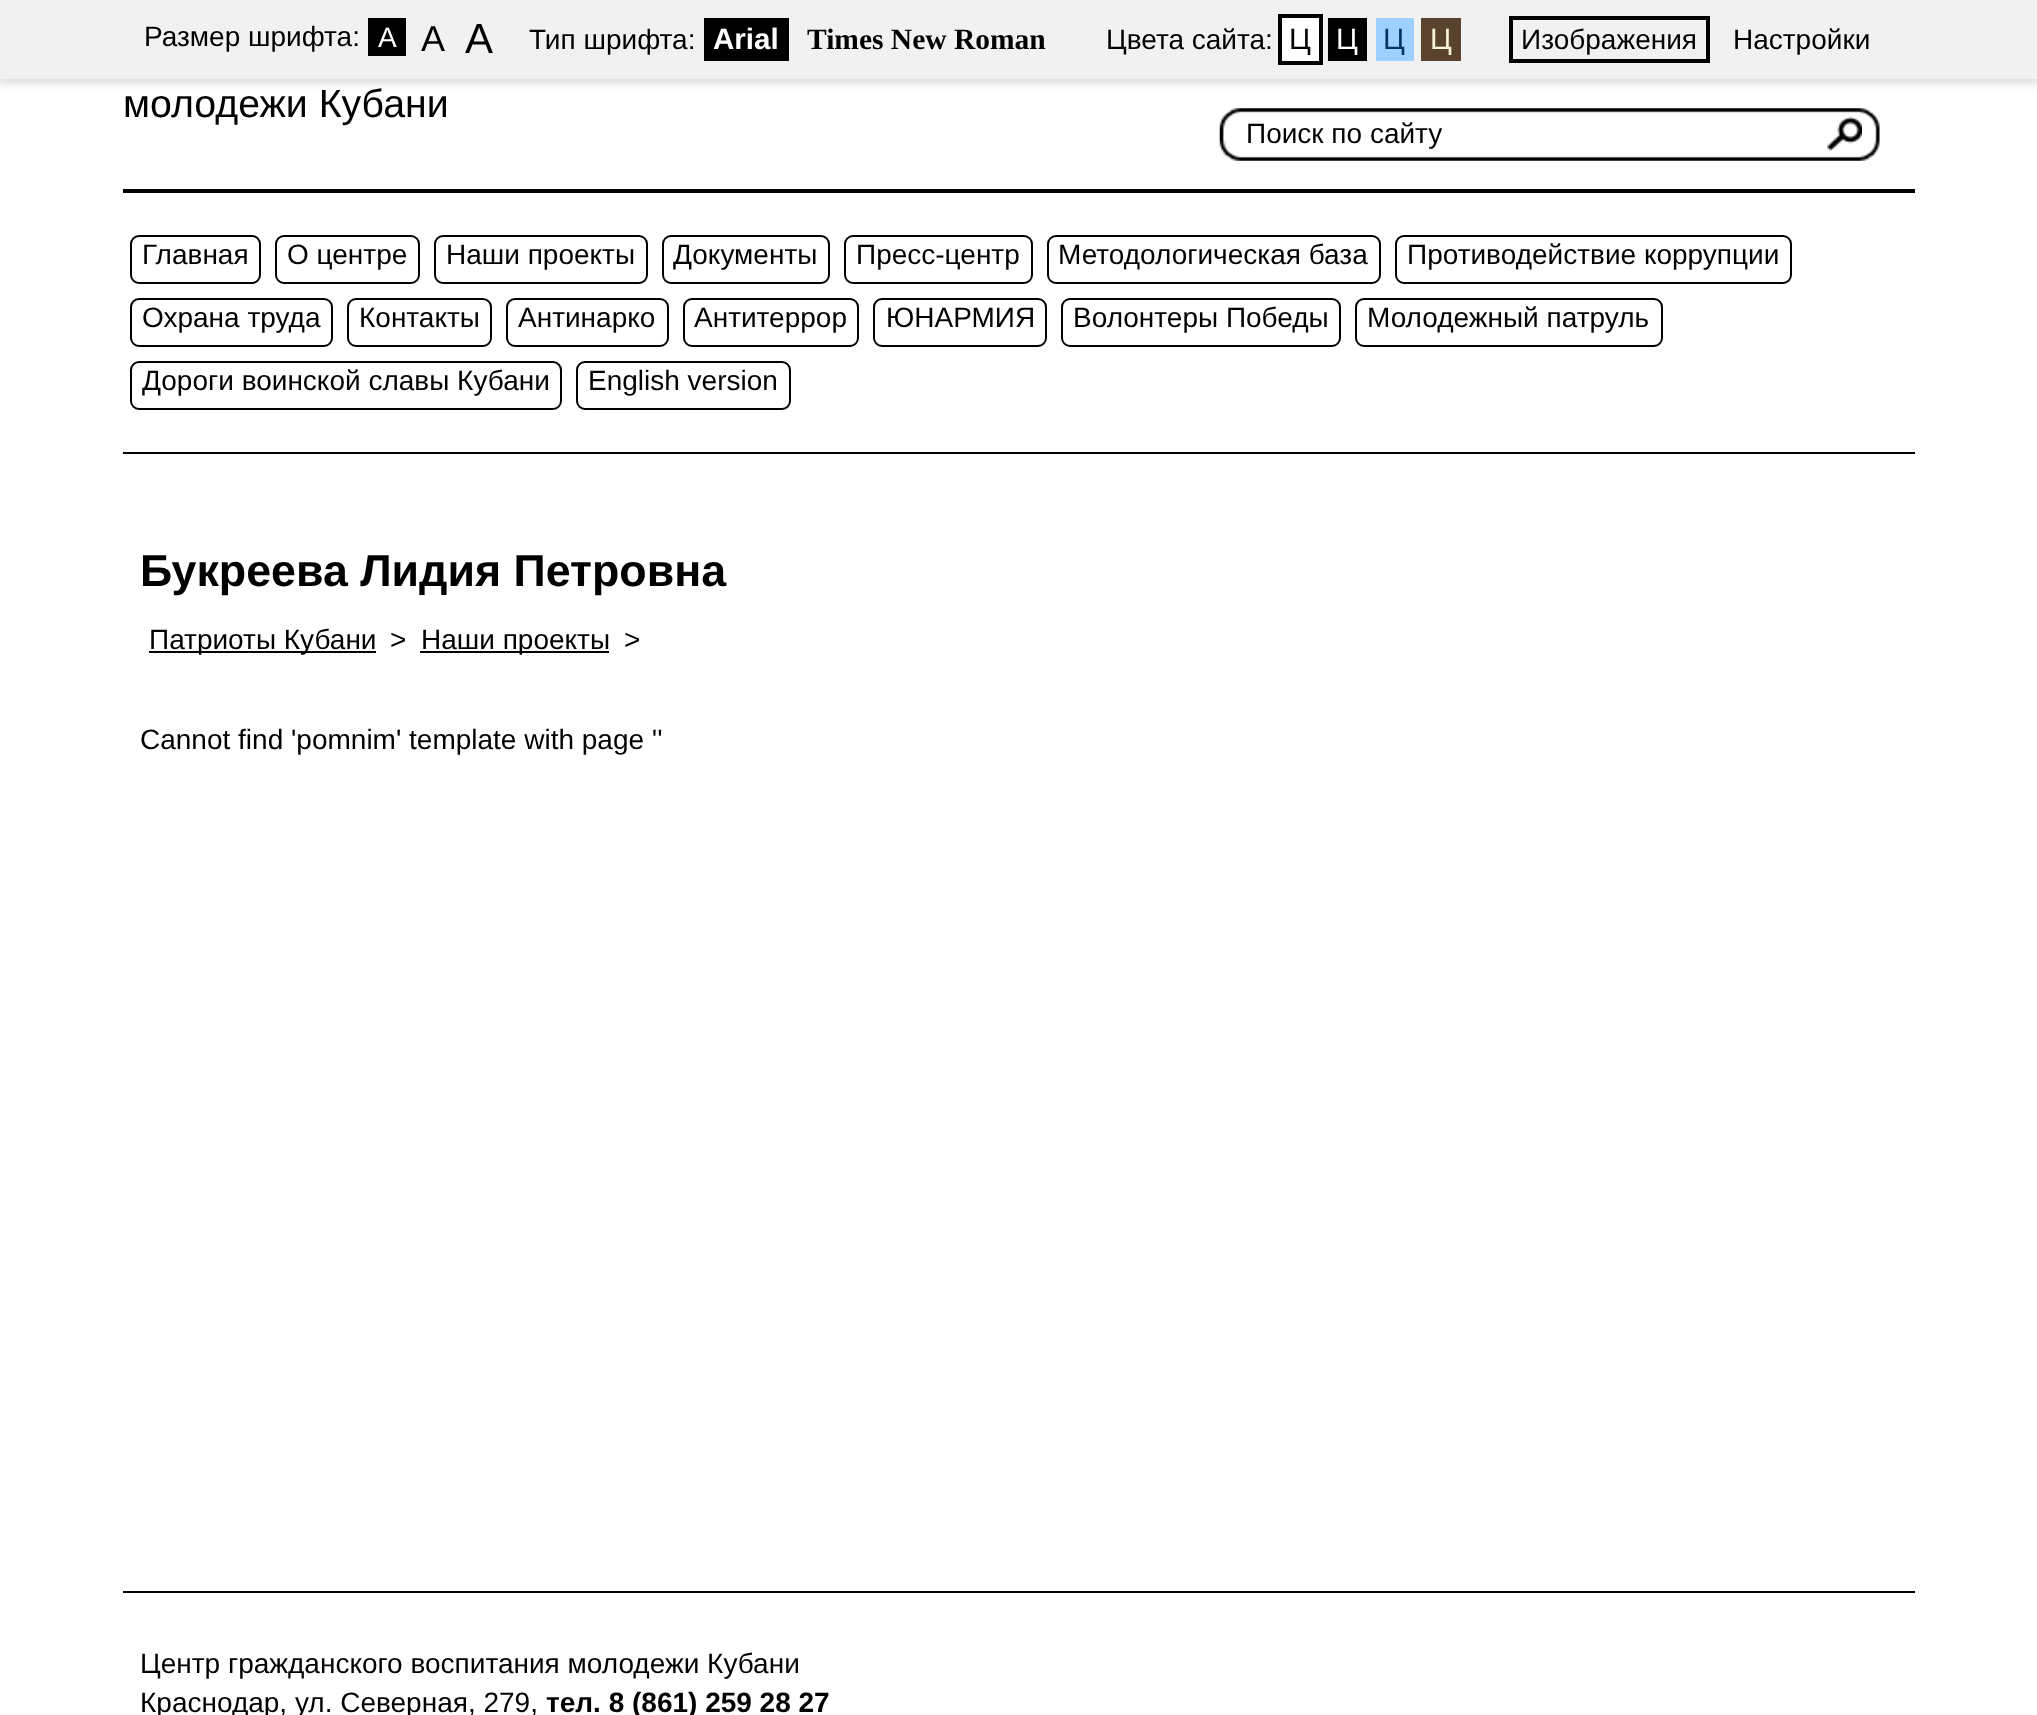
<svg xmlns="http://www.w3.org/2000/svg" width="2037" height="1715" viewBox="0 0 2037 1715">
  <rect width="100%" height="100%" fill="#fff"/>
  <path d="M-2 2h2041v82H-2z" fill="#0101011f" filter="blur(3.5px)"/>
  <path d="M0 0h2037v79H0z" fill="#f1f1f1"/>
  <path d="M368 18h38v38H368z" fill="#000"/>
  <path d="M704 18h85v43H704z" fill="#000"/>
  <path d="M1282 18h37v43H1282z" fill="#fff"/>
  <path d="M1280 16h41v47H1280z" fill="none" stroke="#000" stroke-width="4"/>
  <path d="M1328 18h39v43H1328z" fill="#000"/>
  <path d="M1376 18h38v43H1376z" fill="#9dd1ff"/>
  <path d="M1421 18h40v43H1421z" fill="#59422e"/>
  <path d="M1511 18h197v43H1511z" fill="none" stroke="#000" stroke-width="4"/>
  <image x="1219" y="108" width="661" height="53" href="img/1.png"/>
  <image x="1827" y="117" width="35" height="34" href="img/2.png"/>
  <path d="M123 189h1792v4H123z" fill="#000"/>
  <path d="M123 452h1792v2H123z" fill="#000"/>
  <rect x="131" y="236" width="129" height="47" rx="8" fill="none" stroke="#000" stroke-width="2"/>
  <rect x="276" y="236" width="143" height="47" rx="8" fill="none" stroke="#000" stroke-width="2"/>
  <rect x="435" y="236" width="212" height="47" rx="8" fill="none" stroke="#000" stroke-width="2"/>
  <rect x="663" y="236" width="166" height="47" rx="8" fill="none" stroke="#000" stroke-width="2"/>
  <rect x="845" y="236" width="187" height="47" rx="8" fill="none" stroke="#000" stroke-width="2"/>
  <rect x="1048" y="236" width="332" height="47" rx="8" fill="none" stroke="#000" stroke-width="2"/>
  <rect x="1396" y="236" width="395" height="47" rx="8" fill="none" stroke="#000" stroke-width="2"/>
  <rect x="131" y="299" width="201" height="47" rx="8" fill="none" stroke="#000" stroke-width="2"/>
  <rect x="348" y="299" width="143" height="47" rx="8" fill="none" stroke="#000" stroke-width="2"/>
  <rect x="507" y="299" width="161" height="47" rx="8" fill="none" stroke="#000" stroke-width="2"/>
  <rect x="684" y="299" width="174" height="47" rx="8" fill="none" stroke="#000" stroke-width="2"/>
  <rect x="874" y="299" width="172" height="47" rx="8" fill="none" stroke="#000" stroke-width="2"/>
  <rect x="1062" y="299" width="278" height="47" rx="8" fill="none" stroke="#000" stroke-width="2"/>
  <rect x="1356" y="299" width="306" height="47" rx="8" fill="none" stroke="#000" stroke-width="2"/>
  <rect x="131" y="362" width="430" height="47" rx="8" fill="none" stroke="#000" stroke-width="2"/>
  <rect x="577" y="362" width="213" height="47" rx="8" fill="none" stroke="#000" stroke-width="2"/>
  <path d="M149 651h227v2H149z" fill="#000"/>
  <path d="M420 651h189v2H420z" fill="#000"/>
  <path d="M123 1591h1792v2H123z" fill="#000"/>
  <text x="144" y="46" font-family="Liberation Sans" font-size="28" fill="#000">Размер шрифта:</text>
  <text x="378" y="47" font-family="Liberation Sans" font-size="28" fill="#fff">A</text>
  <text x="421" y="51" font-family="Liberation Sans" font-size="36" fill="#000">A</text>
  <text x="465" y="53" font-family="Liberation Sans" font-size="42" fill="#000">A</text>
  <text x="529" y="49" font-family="Liberation Sans" font-size="28" fill="#000">Тип шрифта:</text>
  <text x="713" y="49" font-family="Liberation Sans" font-size="29.5" font-weight="bold" fill="#fff">Arial</text>
  <text x="807" y="49" font-family="Liberation Serif" font-size="29.5" font-weight="bold" fill="#000">Times New Roman</text>
  <text x="1106" y="49" font-family="Liberation Sans" font-size="28" fill="#000">Цвета сайта:</text>
  <text x="1289" y="49" font-family="Liberation Sans" font-size="29.5" fill="#000">Ц</text>
  <text x="1336" y="49" font-family="Liberation Sans" font-size="29.5" fill="#fff">Ц</text>
  <text x="1383" y="49" font-family="Liberation Sans" font-size="29.5" fill="#063462">Ц</text>
  <text x="1430" y="49" font-family="Liberation Sans" font-size="29.5" fill="#f7f3d6">Ц</text>
  <g font-family="Liberation Sans" font-size="28" fill="#000">
    <text x="1521" y="49">Изображения</text>
    <text x="1733" y="49">Настройки</text>
  </g>
  <text x="123" y="117" font-family="Liberation Sans" font-size="39.25" fill="#000">молодежи Кубани</text>
  <g font-family="Liberation Sans" font-size="28" fill="#000">
    <text x="1246" y="143">Поиск по сайту</text>
    <text x="142" y="264">Главная</text>
    <text x="287" y="264">О центре</text>
    <text x="446" y="264">Наши проекты</text>
    <text x="673" y="264">Документы</text>
    <text x="856" y="264">Пресс-центр</text>
    <text x="1058" y="264">Методологическая база</text>
    <text x="1407" y="264">Противодействие коррупции</text>
    <text x="142" y="327">Охрана труда</text>
    <text x="359" y="327">Контакты</text>
    <text x="518" y="327">Антинарко</text>
    <text x="694" y="327">Антитеррор</text>
    <text x="886" y="327">ЮНАРМИЯ</text>
    <text x="1073" y="327">Волонтеры Победы</text>
    <text x="1367" y="327">Молодежный патруль</text>
    <text x="142" y="390">Дороги воинской славы Кубани</text>
    <text x="588" y="390">English version</text>
  </g>
  <text x="140" y="586" font-family="Liberation Sans" font-size="44.75" font-weight="bold" fill="#000">Букреева Лидия Петровна</text>
  <g font-family="Liberation Sans" font-size="28" fill="#000">
    <text x="149" y="649">Патриоты Кубани</text>
    <text x="390" y="649">&gt;</text>
    <text x="421" y="649">Наши проекты</text>
    <text x="624" y="649">&gt;</text>
    <text x="140" y="749">Cannot find 'pomnim' template with page ''</text>
    <text x="140" y="1673">Центр гражданского воспитания молодежи Кубани</text>
    <text x="140" y="1712">Краснодар, ул. Северная, 279,</text>
  </g>
  <text x="546" y="1712" font-family="Liberation Sans" font-size="28" font-weight="bold" fill="#000">тел. 8 (861) 259 28 27</text>
</svg>
